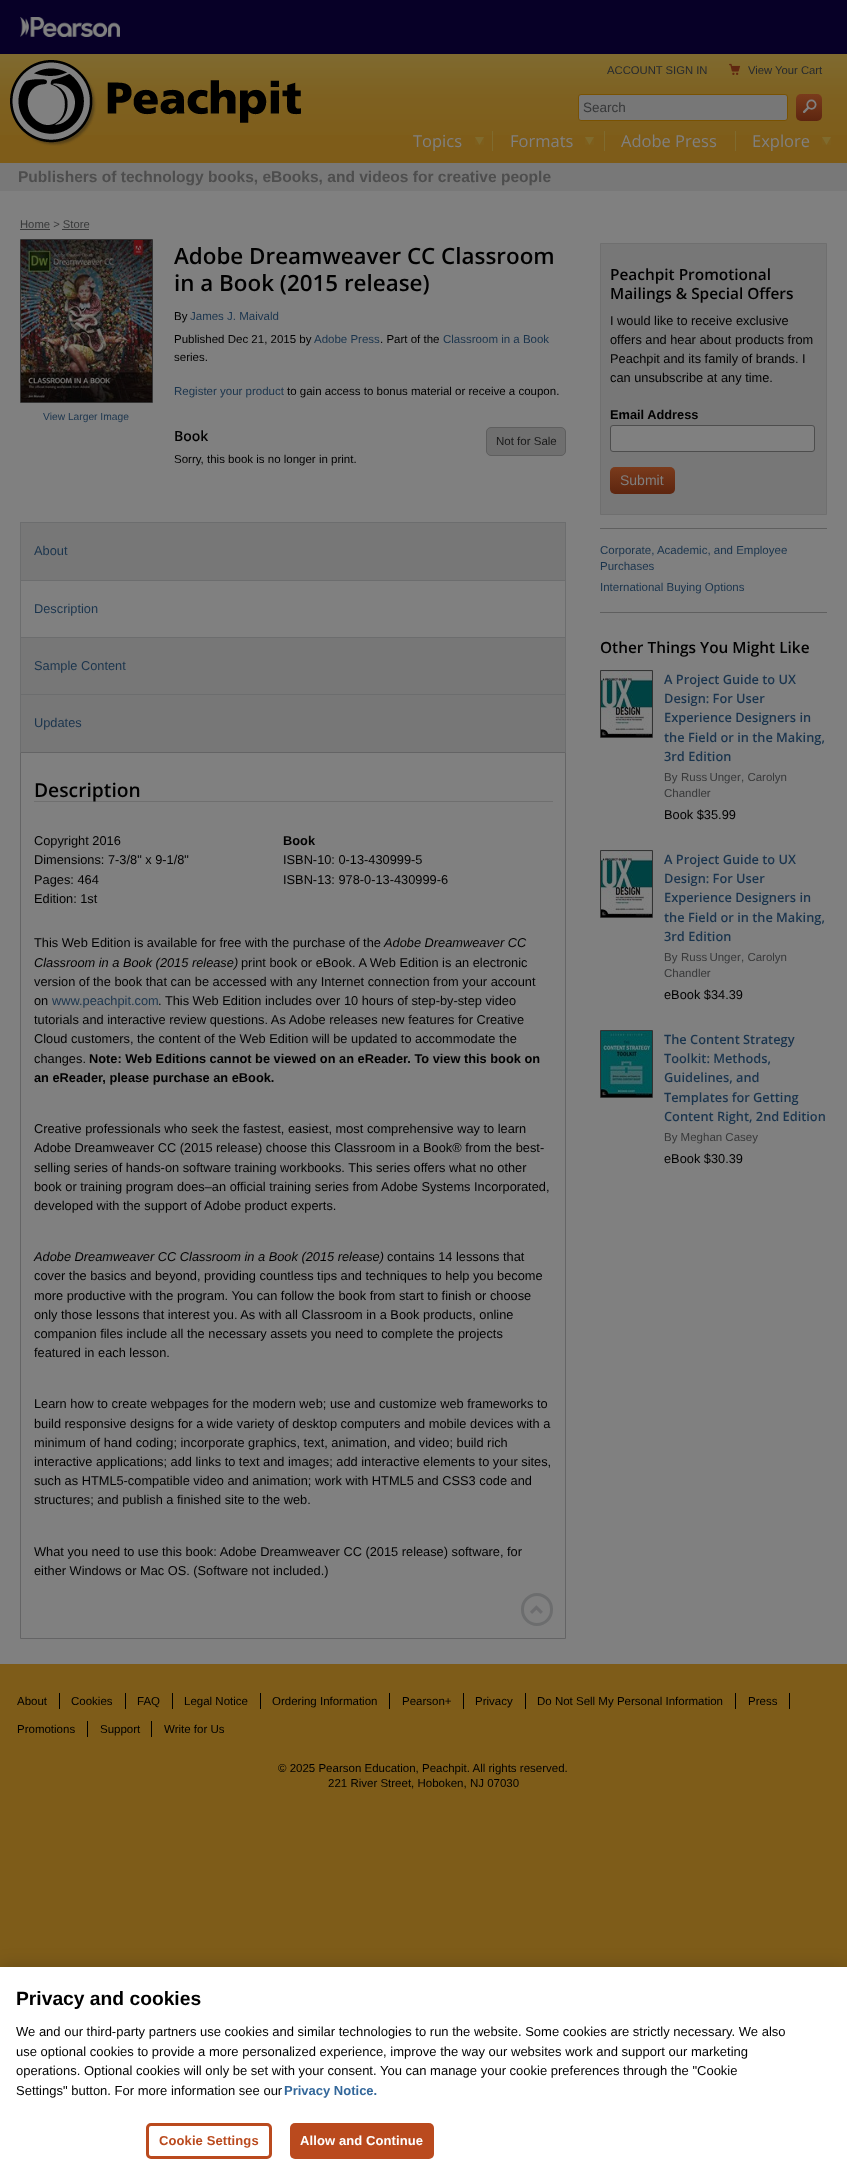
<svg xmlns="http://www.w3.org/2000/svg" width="847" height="2172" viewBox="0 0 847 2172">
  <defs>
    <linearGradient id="g1" gradientUnits="userSpaceOnUse" x1="809" y1="94" x2="809" y2="121"><stop offset="0" stop-color="#7a3b1c"/><stop offset="1" stop-color="#5d250f"/></linearGradient>
    <linearGradient id="g2" gradientUnits="userSpaceOnUse" x1="643" y1="467" x2="643" y2="494"><stop offset="0" stop-color="#7a3b1c"/><stop offset="1" stop-color="#5d250f"/></linearGradient>
  </defs>
  <rect width="100%" height="100%" fill="#7e5c19"/>
  <image x="0" y="54" width="847" height="81" href="img/1.png"/>
  <path d="M0 0h847v54H0z" fill="#070027"/>
  <image x="20" y="17" width="100" height="20" href="img/2.png"/>
  <image x="10" y="60" width="291" height="86" href="img/3.png"/>
  <image x="729" y="63" width="12" height="12" href="img/4.png"/>
  <rect x="578.5" y="94.5" width="209" height="26" rx="2.5" fill="#777" stroke="#795202"/>
  <rect x="796" y="94" width="26" height="27" rx="5" fill="url(#g1)"/>
  <image x="475" y="137" width="9" height="8" href="img/5.png"/>
  <image x="585" y="137" width="9" height="8" href="img/5.png"/>
  <path d="M492 131h1v20H492z" fill="#7f6b2f"/>
  <path d="M604 131h1v20H604z" fill="#7f6b2f"/>
  <image x="822" y="137" width="9" height="8" href="img/5.png"/>
  <path d="M735 131h1v20H735z" fill="#7f6b2f"/>
  <path d="M0 163h847v28H0z" fill="#787878"/>
  <path d="M0 191h847v1473H0z" fill="#808080"/>
  <path d="M20 229h30v1H20z" fill="#373839"/>
  <path d="M62 229h27v1H62z" fill="#373839"/>
  <path d="M20.5 239.5h132v163H20.5z" fill="none" stroke="#333"/>
  <image x="21" y="240" width="131" height="162" href="img/6.png"/>
  <rect x="486.5" y="427.5" width="79" height="28" rx="4.5" fill="#6f6f6f" stroke="#5e5e5e"/>
  <path d="M21 523h544v57H21z" fill="#777"/>
  <path d="M20 522h546v1H20z" fill="#6c6d6e"/>
  <path d="M565 522h1v58H565z" fill="#6c6d6e"/>
  <path d="M20 522h1v58H20z" fill="#6c6d6e"/>
  <path d="M20 580h546v1H20z" fill="#6c6d6e"/>
  <path d="M565 580h1v57H565z" fill="#6c6d6e"/>
  <path d="M20 580h1v57H20z" fill="#6c6d6e"/>
  <path d="M21 638h544v56H21z" fill="#777"/>
  <path d="M20 637h546v1H20z" fill="#6c6d6e"/>
  <path d="M565 637h1v57H565z" fill="#6c6d6e"/>
  <path d="M20 637h1v57H20z" fill="#6c6d6e"/>
  <path d="M21 695h544v57H21z" fill="#777"/>
  <path d="M20 694h546v1H20z" fill="#6c6d6e"/>
  <path d="M565 694h1v58H565z" fill="#6c6d6e"/>
  <path d="M20 694h1v58H20z" fill="#6c6d6e"/>
  <path d="M20.5 752.5h545v886H20.5z" fill="none" stroke="#646465"/>
  <path d="M34 801h519v1H34z" fill="#6f6f6f"/>
  <rect x="522.5" y="1594.5" width="29" height="30" rx="14.5" fill="none" stroke="#6c6d6e" stroke-width="3"/>
  <image x="530" y="1605" width="13" height="9" href="img/7.png"/>
  <path d="M600.5 243.5h226v271H600.5z" fill="#777" stroke="#6f6f6f"/>
  <rect x="610.5" y="425.5" width="204" height="26" rx="2.5" fill="#808080" stroke="#4d4d4d"/>
  <rect x="610" y="467" width="65" height="27" rx="5" fill="url(#g2)"/>
  <path d="M600 528h227v1H600z" fill="#5f5f5f"/>
  <path d="M600 612h227v1H600z" fill="#5f5f5f"/>
  <path d="M600.5 670.5h52v67H600.5z" fill="none" stroke="#333"/>
  <image x="601" y="671" width="51" height="66" href="img/8.png"/>
  <path d="M600.5 850.5h52v67H600.5z" fill="none" stroke="#333"/>
  <image x="601" y="851" width="51" height="66" href="img/8.png"/>
  <path d="M600.5 1030.5h52v67H600.5z" fill="none" stroke="#333"/>
  <image x="601" y="1031" width="51" height="66" href="img/9.png"/>
  <path d="M59 1693h1v16H59z" fill="#000"/>
  <path d="M125 1693h1v16H125z" fill="#000"/>
  <path d="M172 1693h1v16H172z" fill="#000"/>
  <path d="M260 1693h1v16H260z" fill="#000"/>
  <path d="M389 1693h1v16H389z" fill="#000"/>
  <path d="M463 1693h1v16H463z" fill="#000"/>
  <path d="M525 1693h1v16H525z" fill="#000"/>
  <path d="M735 1693h1v16H735z" fill="#000"/>
  <path d="M789 1693h1v16H789z" fill="#000"/>
  <path d="M87 1721h1v16H87z" fill="#000"/>
  <path d="M151 1721h1v16H151z" fill="#000"/>
  <path d="M0 1967h847v205H0z" fill="#00000033" filter="blur(9px)"/>
  <path d="M0 1967h847v205H0z" fill="#fff"/>
  <rect x="147.5" y="2124.5" width="123" height="33" rx="3.5" fill="none" stroke="#ba4a1e" stroke-width="3"/>
  <rect x="290" y="2123" width="144" height="36" rx="5" fill="#ba4a1e"/>
  <g font-family="Liberation Sans" font-size="11.25" fill="#25292f">
    <text x="607" y="74">ACCOUNT SIGN IN</text>
    <text x="748" y="74">View Your Cart</text>
  </g>
  <text x="583" y="112" font-family="Liberation Sans" font-size="13.5" fill="#373839">Search</text>
  <text x="803" y="113" font-family="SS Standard" font-size="13.5" fill="#808080">🔎</text>
  <g font-family="Open Sans" font-size="16.5" fill="#808080">
    <text x="413" y="147">Topics</text>
    <text x="510" y="147">Formats</text>
    <text x="621" y="147">Adobe Press</text>
    <text x="752" y="147">Explore</text>
  </g>
  <text x="18" y="182" font-family="Liberation Sans" font-size="15.55" font-weight="bold" fill="#4d4d4d">Publishers of technology books, eBooks, and videos for creative people</text>
  <text x="20" y="228" font-family="Liberation Sans" font-size="11.25" fill="#373839">Home &gt; Store</text>
  <text x="43" y="420" font-family="Liberation Sans" font-size="10.25" fill="#1a344d">View Larger Image</text>
  <g font-family="Open Sans" font-size="22.4" font-weight="600" fill="#000">
    <text x="174" y="264">Adobe Dreamweaver CC Classroom</text>
    <text x="174" y="291">in a Book (2015 release)</text>
  </g>
  <text x="174" y="320" font-family="Liberation Sans" font-size="11.5" fill="#000">By</text>
  <text x="190" y="320" font-family="Liberation Sans" font-size="11.5" fill="#1a344d">James J. Maivald</text>
  <text x="174" y="343" font-family="Liberation Sans" font-size="11.5" fill="#000">Published Dec 21, 2015 by</text>
  <text x="314" y="343" font-family="Liberation Sans" font-size="11.5" fill="#1a344d">Adobe Press</text>
  <text x="380" y="343" font-family="Liberation Sans" font-size="11.5" fill="#000">. Part of the</text>
  <text x="443" y="343" font-family="Liberation Sans" font-size="11.5" fill="#1a344d">Classroom in a Book</text>
  <text x="174" y="361" font-family="Liberation Sans" font-size="11.5" fill="#000">series.</text>
  <text x="174" y="395" font-family="Liberation Sans" font-size="11.5" fill="#1a344d">Register your product</text>
  <text x="287" y="395" font-family="Liberation Sans" font-size="11.5" fill="#000">to gain access to bonus material or receive a coupon.</text>
  <text x="174" y="441" font-family="Open Sans" font-size="14" font-weight="600" fill="#000">Book</text>
  <text x="496" y="445" font-family="Liberation Sans" font-size="11.5" fill="#1a1a1a">Not for Sale</text>
  <text x="174" y="463" font-family="Liberation Sans" font-size="11.5" fill="#000">Sorry, this book is no longer in print.</text>
  <g font-family="Liberation Sans" font-size="12.8" fill="#1a344d">
    <text x="34" y="555">About</text>
    <text x="34" y="613">Description</text>
    <text x="34" y="670">Sample Content</text>
    <text x="34" y="727">Updates</text>
  </g>
  <text x="34" y="797" font-family="Open Sans" font-size="19.25" font-weight="600" fill="#000">Description</text>
  <g font-family="Liberation Sans" font-size="12.8" fill="#000">
    <text x="34" y="845">Copyright 2016</text>
    <text x="34" y="864">Dimensions: 7-3/8" x 9-1/8"</text>
    <text x="34" y="884">Pages: 464</text>
    <text x="34" y="903">Edition: 1st</text>
  </g>
  <text x="283" y="845" font-family="Liberation Sans" font-size="12.8" font-weight="bold" fill="#000">Book</text>
  <g font-family="Liberation Sans" font-size="12.8" fill="#000">
    <text x="283" y="864">ISBN-10: 0-13-430999-5</text>
    <text x="283" y="884">ISBN-13: 978-0-13-430999-6</text>
    <text x="34" y="947">This Web Edition is available for free with the purchase of the</text>
  </g>
  <g font-family="Liberation Sans" font-size="12.8" font-style="italic" fill="#000">
    <text x="384" y="947">Adobe Dreamweaver CC</text>
    <text x="34" y="967">Classroom in a Book (2015 release)</text>
  </g>
  <g font-family="Liberation Sans" font-size="12.8" fill="#000">
    <text x="241" y="967">print book or eBook. A Web Edition is an electronic</text>
    <text x="34" y="986">version of the book that can be accessed with any Internet connection from your account</text>
    <text x="34" y="1005">on</text>
  </g>
  <text x="52" y="1005" font-family="Liberation Sans" font-size="12.8" fill="#1a344d">www.peachpit.com</text>
  <g font-family="Liberation Sans" font-size="12.8" fill="#000">
    <text x="158" y="1005">. This Web Edition includes over 10 hours of step-by-step video</text>
    <text x="34" y="1024">tutorials and interactive review questions. As Adobe releases new features for Creative</text>
    <text x="34" y="1043">Cloud customers, the content of the Web Edition will be updated to accommodate the</text>
    <text x="34" y="1063">changes.</text>
  </g>
  <g font-family="Liberation Sans" font-size="12.8" font-weight="bold" fill="#000">
    <text x="89" y="1063">Note: Web Editions cannot be viewed on an eReader. To view this book on</text>
    <text x="34" y="1082">an eReader, please purchase an eBook.</text>
  </g>
  <g font-family="Liberation Sans" font-size="12.8" fill="#000">
    <text x="34" y="1133">Creative professionals who seek the fastest, easiest, most comprehensive way to learn</text>
    <text x="34" y="1152">Adobe Dreamweaver CC (2015 release) choose this Classroom in a Book® from the best-</text>
    <text x="34" y="1172">selling series of hands-on software training workbooks. This series offers what no other</text>
    <text x="34" y="1191">book or training program does–an official training series from Adobe Systems Incorporated,</text>
    <text x="34" y="1210">developed with the support of Adobe product experts.</text>
  </g>
  <text x="34" y="1261" font-family="Liberation Sans" font-size="12.8" font-style="italic" fill="#000">Adobe Dreamweaver CC Classroom in a Book (2015 release)</text>
  <g font-family="Liberation Sans" font-size="12.8" fill="#000">
    <text x="387" y="1261">contains 14 lessons that</text>
    <text x="34" y="1280">cover the basics and beyond, providing countless tips and techniques to help you become</text>
    <text x="34" y="1300">more productive with the program. You can follow the book from start to finish or choose</text>
    <text x="34" y="1319">only those lessons that interest you. As with all Classroom in a Book products, online</text>
    <text x="34" y="1338">companion files include all the necessary assets you need to complete the projects</text>
    <text x="34" y="1357">featured in each lesson.</text>
    <text x="34" y="1408">Learn how to create webpages for the modern web; use and customize web frameworks to</text>
    <text x="34" y="1428">build responsive designs for a wide variety of desktop computers and mobile devices with a</text>
    <text x="34" y="1447">minimum of hand coding; incorporate graphics, text, animation, and video; build rich</text>
    <text x="34" y="1466">interactive applications; add links to text and images; add interactive elements to your sites,</text>
    <text x="34" y="1485">such as HTML5-compatible video and animation; work with HTML5 and CSS3 code and</text>
    <text x="34" y="1504">structures; and publish a finished site to the web.</text>
    <text x="34" y="1556">What you need to use this book: Adobe Dreamweaver CC (2015 release) software, for</text>
    <text x="34" y="1575">either Windows or Mac OS. (Software not included.)</text>
  </g>
  <g font-family="Open Sans" font-size="15.4" font-weight="600" fill="#000">
    <text x="610" y="280">Peachpit Promotional</text>
    <text x="610" y="299">Mailings &amp; Special Offers</text>
  </g>
  <g font-family="Liberation Sans" font-size="12.8" fill="#000">
    <text x="610" y="325">I would like to receive exclusive</text>
    <text x="610" y="344">offers and hear about products from</text>
    <text x="610" y="363">Peachpit and its family of brands. I</text>
    <text x="610" y="382">can unsubscribe at any time.</text>
  </g>
  <text x="610" y="419" font-family="Liberation Sans" font-size="12.8" font-weight="bold" fill="#000">Email Address</text>
  <text x="620" y="485" font-family="Liberation Sans" font-size="14" fill="#808080">Submit</text>
  <g font-family="Liberation Sans" font-size="11.5" fill="#1a344d">
    <text x="600" y="554">Corporate, Academic, and Employee</text>
    <text x="600" y="570">Purchases</text>
    <text x="600" y="591">International Buying Options</text>
  </g>
  <text x="600" y="653" font-family="Open Sans" font-size="15.4" font-weight="600" fill="#000">Other Things You Might Like</text>
  <g font-family="Open Sans" font-size="12.8" font-weight="600" fill="#1a344d">
    <text x="664" y="684">A Project Guide to UX</text>
    <text x="664" y="703">Design: For User</text>
    <text x="664" y="722">Experience Designers in</text>
    <text x="664" y="742">the Field or in the Making,</text>
    <text x="664" y="761">3rd Edition</text>
  </g>
  <g font-family="Liberation Sans" font-size="11.5" fill="#373839">
    <text x="664" y="781">By</text>
    <text x="681" y="781" word-spacing="-1">Russ Unger</text>
    <text x="741" y="781">, Carolyn</text>
    <text x="664" y="797">Chandler</text>
  </g>
  <text x="664" y="819" font-family="Liberation Sans" font-size="12.8" fill="#000">Book $35.99</text>
  <g font-family="Open Sans" font-size="12.8" font-weight="600" fill="#1a344d">
    <text x="664" y="864">A Project Guide to UX</text>
    <text x="664" y="883">Design: For User</text>
    <text x="664" y="902">Experience Designers in</text>
    <text x="664" y="922">the Field or in the Making,</text>
    <text x="664" y="941">3rd Edition</text>
  </g>
  <g font-family="Liberation Sans" font-size="11.5" fill="#373839">
    <text x="664" y="961">By</text>
    <text x="681" y="961" word-spacing="-1">Russ Unger</text>
    <text x="741" y="961">, Carolyn</text>
    <text x="664" y="977">Chandler</text>
  </g>
  <text x="664" y="999" font-family="Liberation Sans" font-size="12.8" fill="#000">eBook $34.39</text>
  <g font-family="Open Sans" font-size="12.8" font-weight="600" fill="#1a344d">
    <text x="664" y="1044">The Content Strategy</text>
    <text x="664" y="1063">Toolkit: Methods,</text>
    <text x="664" y="1082">Guidelines, and</text>
    <text x="664" y="1102">Templates for Getting</text>
    <text x="664" y="1121">Content Right, 2nd Edition</text>
  </g>
  <text x="664" y="1141" font-family="Liberation Sans" font-size="11.5" fill="#373839">By Meghan Casey</text>
  <text x="664" y="1163" font-family="Liberation Sans" font-size="12.8" fill="#000">eBook $30.39</text>
  <g font-family="Liberation Sans" font-size="11.5" fill="#000">
    <text x="17" y="1705">About</text>
    <text x="71" y="1705">Cookies</text>
    <text x="137" y="1705">FAQ</text>
    <text x="184" y="1705">Legal Notice</text>
    <text x="272" y="1705">Ordering Information</text>
    <text x="402" y="1705">Pearson+</text>
    <text x="475" y="1705">Privacy</text>
    <text x="537" y="1705">Do Not Sell My Personal Information</text>
    <text x="748" y="1705">Press</text>
    <text x="17" y="1733">Promotions</text>
    <text x="100" y="1733">Support</text>
    <text x="164" y="1733">Write for Us</text>
    <text x="278" y="1772">© 2025 Pearson Education, Peachpit. All rights reserved.</text>
    <text x="328" y="1787">221 River Street, Hoboken, NJ 07030</text>
  </g>
  <text x="16" y="2005" font-family="Liberation Sans" font-size="19.25" font-weight="bold" fill="#000">Privacy and cookies</text>
  <g font-family="Liberation Sans" font-size="13" fill="#000">
    <text x="16" y="2036">We and our third-party partners use cookies and similar technologies to run the website. Some cookies are strictly necessary. We also</text>
    <text x="16" y="2056">use optional cookies to provide a more personalized experience, improve the way our websites work and support our marketing</text>
    <text x="16" y="2075">operations. Optional cookies will only be set with your consent. You can manage your cookie preferences through the "Cookie</text>
    <text x="16" y="2095">Settings" button. For more information see our</text>
  </g>
  <text x="284" y="2095" font-family="Liberation Sans" font-size="13" font-weight="bold" fill="#33679a">Privacy Notice.</text>
  <text x="159" y="2145" font-family="Liberation Sans" font-size="13" font-weight="bold" letter-spacing="0.1" fill="#ba4a1e">Cookie Settings</text>
  <text x="300" y="2145" font-family="Liberation Sans" font-size="13" font-weight="bold" letter-spacing="0.1" fill="#fff">Allow and Continue</text>
</svg>
